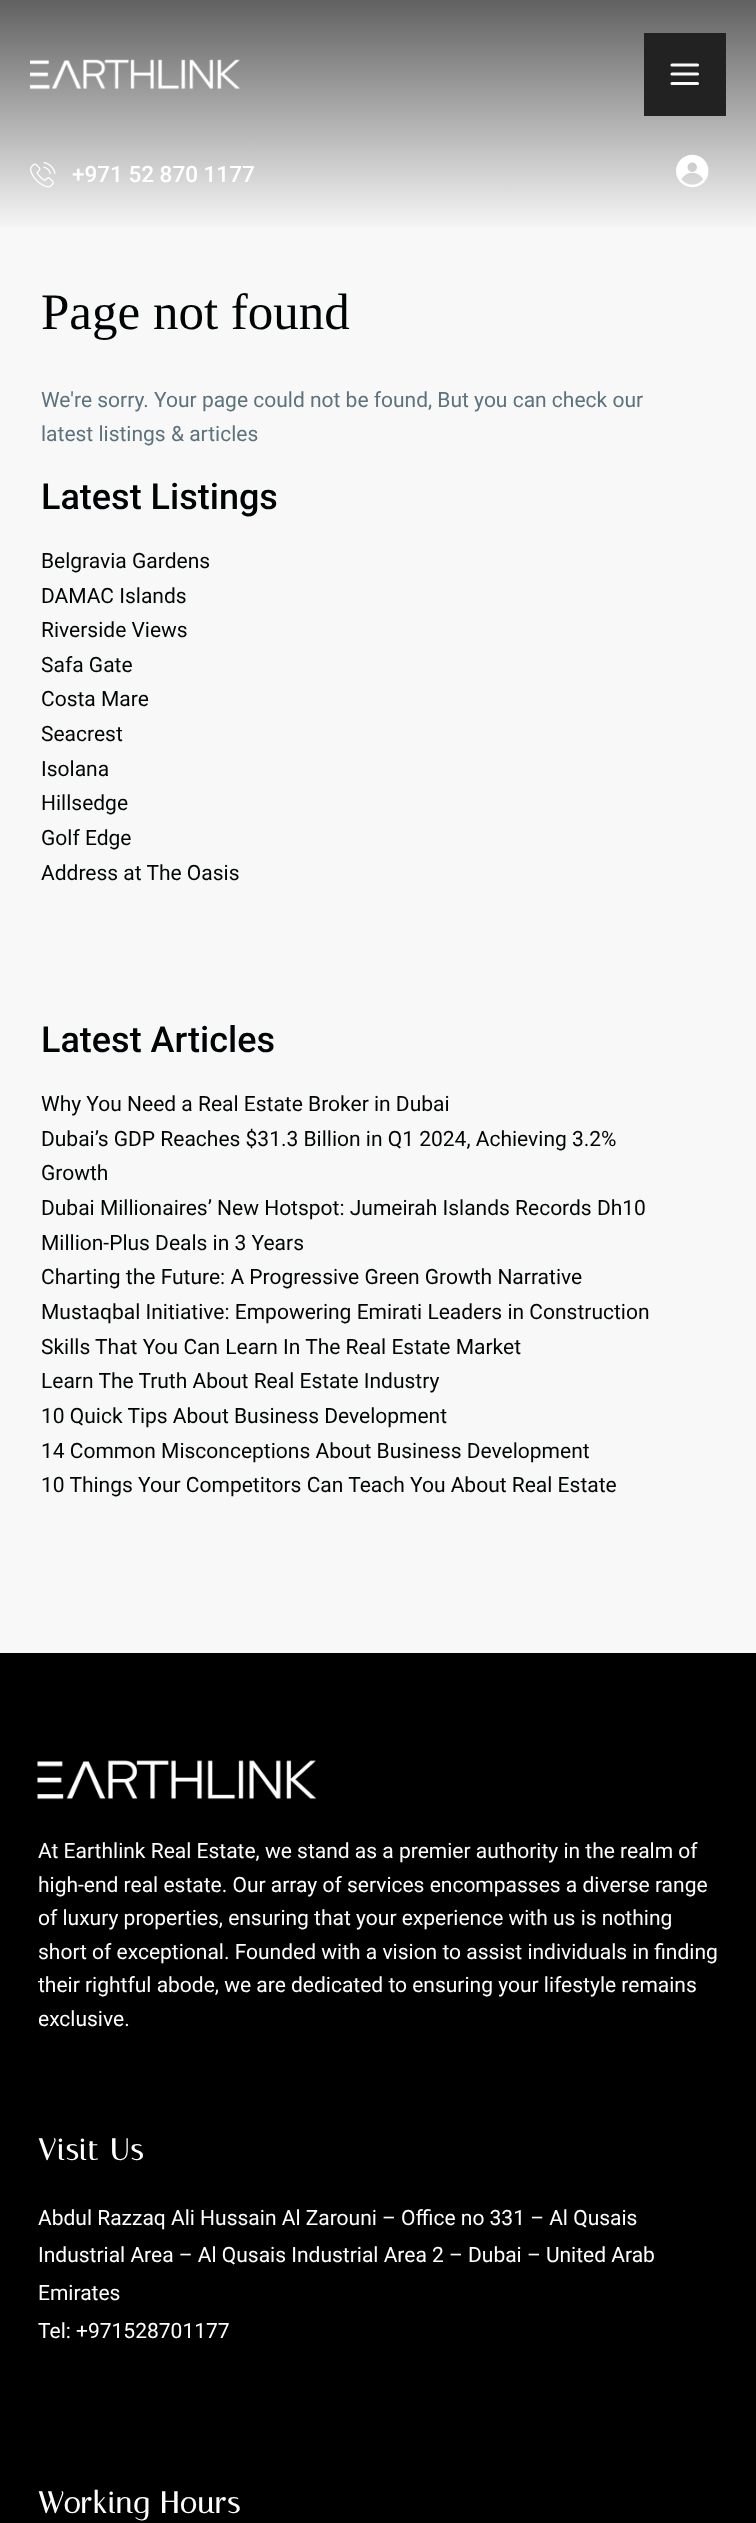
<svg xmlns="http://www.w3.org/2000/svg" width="756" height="2523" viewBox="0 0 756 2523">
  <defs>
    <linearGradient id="g1" gradientUnits="userSpaceOnUse" x1="378" y1="231" x2="378" y2="0"><stop offset="0" stop-color="#f8f8f8"/><stop offset="1" stop-color="#616161"/></linearGradient>
  </defs>
  <rect width="100%" height="100%" fill="#f8f8f8"/>
  <path d="M0 0h756v227H0z" fill="url(#g1)"/>
  <image x="30" y="59" width="210" height="31" href="img/1.png"/>
  <path d="M644 33h82v83H644z" fill="#222"/>
  <path d="M672 83.5H697.5M672 74H697.5M672 65H697.5" fill="none" stroke="#f9f9f9" stroke-width="3.1" stroke-linecap="round"/>
  <image x="30" y="162" width="26" height="26" href="img/2.png"/>
  <image x="676" y="154" width="33" height="34" href="img/3.png"/>
  <path d="M0 1653h756v870H0z" fill="#000"/>
  <image x="37" y="1760" width="280" height="40" href="img/4.png"/>
  <text x="72" y="182" font-family="Roboto" font-size="22.5" font-weight="500" fill="#fff">+971 52 870 1177</text>
  <text x="41" y="329" font-family="Liberation Serif" font-size="51" fill="#000405">Page not found</text>
  <g font-family="Roboto" font-size="21" fill="#5c727d">
    <text x="41" y="407">We're sorry. Your page could not be found, But you can check our</text>
    <text x="41" y="441">latest listings &amp; articles</text>
  </g>
  <text x="41" y="509" font-family="Roboto" font-size="36" font-weight="500" fill="#000405">Latest Listings</text>
  <g font-family="Roboto" font-size="21" fill="#000405">
    <text x="41" y="568">Belgravia Gardens</text>
    <text x="41" y="603">DAMAC Islands</text>
    <text x="41" y="637">Riverside Views</text>
    <text x="41" y="672">Safa Gate</text>
    <text x="41" y="706">Costa Mare</text>
    <text x="41" y="741">Seacrest</text>
    <text x="41" y="776">Isolana</text>
    <text x="41" y="810">Hillsedge</text>
    <text x="41" y="845">Golf Edge</text>
    <text x="41" y="880">Address at The Oasis</text>
  </g>
  <text x="41" y="1052" font-family="Roboto" font-size="36" font-weight="500" fill="#000405">Latest Articles</text>
  <g font-family="Roboto" font-size="21" fill="#000405">
    <text x="41" y="1111">Why You Need a Real Estate Broker in Dubai</text>
    <text x="41" y="1146">Dubai’s GDP Reaches $31.3 Billion in Q1 2024, Achieving 3.2%</text>
    <text x="41" y="1180">Growth</text>
    <text x="41" y="1215">Dubai Millionaires’ New Hotspot: Jumeirah Islands Records Dh10</text>
    <text x="41" y="1250">Million-Plus Deals in 3 Years</text>
    <text x="41" y="1284">Charting the Future: A Progressive Green Growth Narrative</text>
    <text x="41" y="1319">Mustaqbal Initiative: Empowering Emirati Leaders in Construction</text>
    <text x="41" y="1354">Skills That You Can Learn In The Real Estate Market</text>
    <text x="41" y="1388">Learn The Truth About Real Estate Industry</text>
    <text x="41" y="1423">10 Quick Tips About Business Development</text>
    <text x="41" y="1458">14 Common Misconceptions About Business Development</text>
    <text x="41" y="1492">10 Things Your Competitors Can Teach You About Real Estate</text>
  </g>
  <g font-family="Roboto" font-size="21" fill="#fff">
    <text x="38" y="1858">At Earthlink Real Estate, we stand as a premier authority in the realm of</text>
    <text x="38" y="1892">high-end real estate. Our array of services encompasses a diverse range</text>
    <text x="38" y="1925">of luxury properties, ensuring that your experience with us is nothing</text>
    <text x="38" y="1959">short of exceptional. Founded with a vision to assist individuals in finding</text>
    <text x="38" y="1992">their rightful abode, we are dedicated to ensuring your lifestyle remains</text>
    <text x="38" y="2026">exclusive.</text>
  </g>
  <text x="38" y="2160" font-family="Italiana" font-size="30" font-weight="bold" letter-spacing="1.5" fill="#fff">Visit Us</text>
  <g font-family="Roboto" font-size="21" fill="#fff">
    <text x="38" y="2225">Abdul Razzaq Ali Hussain Al Zarouni – Office no 331 – Al Qusais</text>
    <text x="38" y="2262">Industrial Area – Al Qusais Industrial Area 2 – Dubai – United Arab</text>
    <text x="38" y="2300">Emirates</text>
    <text x="38" y="2338">Tel: +971528701177</text>
  </g>
  <text x="38" y="2513" font-family="Italiana" font-size="30" font-weight="bold" letter-spacing="1.5" fill="#fff">Working Hours</text>
</svg>
